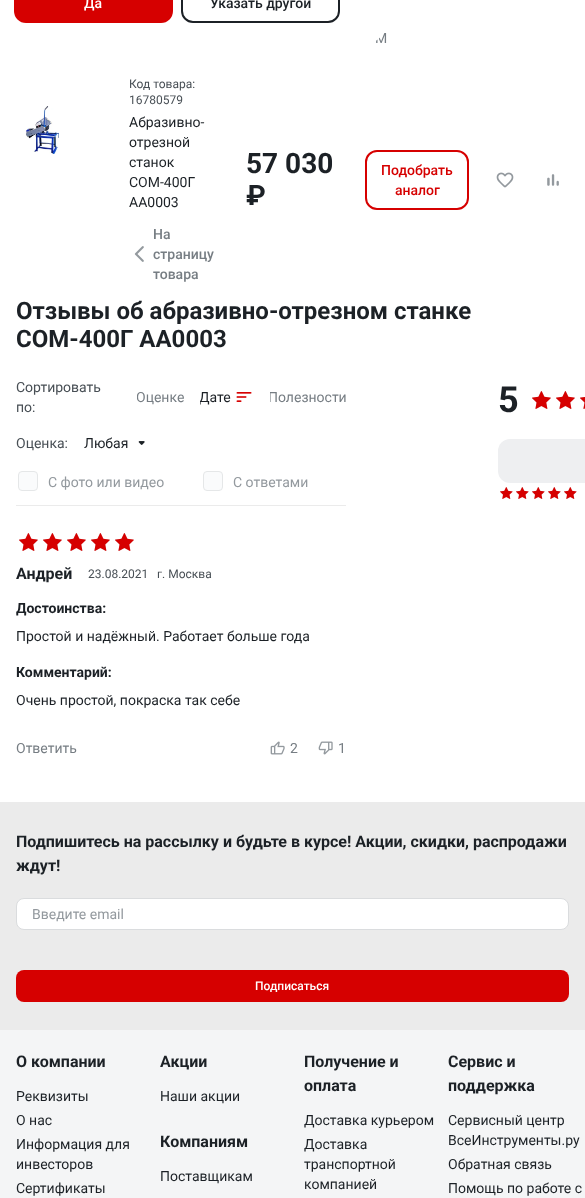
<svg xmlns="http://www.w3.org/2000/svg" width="585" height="1198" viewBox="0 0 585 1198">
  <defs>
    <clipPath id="clip1"><path d="M137 377h47v40H137z"/></clipPath>
    <clipPath id="clip2"><path d="M200 377h54v40H200z"/></clipPath>
    <clipPath id="clip3"><path d="M270 377h76v40H270z"/></clipPath>
  </defs>
  <rect width="100%" height="100%" fill="#fff"/>
  <image x="25" y="106" width="34" height="48" href="img/1.png"/>
  <image x="134" y="246" width="10" height="16" href="img/2.png"/>
  <rect x="366" y="151" width="102" height="58" rx="11" fill="none" stroke="#d60000" stroke-width="2"/>
  <image x="496" y="172" width="18" height="16" href="img/3.png"/>
  <image x="547" y="174" width="12" height="12" href="img/4.png"/>
  <path d="M16 505h330v1H16z" fill="#ebebeb"/>
  <image x="236" y="392" width="16" height="10" href="img/5.png"/>
  <image x="138" y="441" width="7" height="4" href="img/6.png"/>
  <rect x="18.5" y="471.5" width="19" height="19" rx="3.5" fill="#fafbfc" stroke="#e5e7e8"/>
  <rect x="203.5" y="471.5" width="19" height="19" rx="3.5" fill="#fafbfc" stroke="#e5e7e8"/>
  <image x="19" y="533" width="19" height="18" href="img/7.png"/>
  <image x="43" y="533" width="19" height="18" href="img/7.png"/>
  <image x="67" y="533" width="19" height="18" href="img/7.png"/>
  <image x="91" y="533" width="19" height="18" href="img/7.png"/>
  <image x="115" y="533" width="19" height="18" href="img/7.png"/>
  <image x="19" y="533" width="19" height="18" href="img/8.png"/>
  <image x="43" y="533" width="19" height="18" href="img/8.png"/>
  <image x="67" y="533" width="19" height="18" href="img/8.png"/>
  <image x="91" y="533" width="19" height="18" href="img/8.png"/>
  <image x="115" y="533" width="19" height="18" href="img/8.png"/>
  <image x="270" y="741" width="15" height="14" href="img/9.png"/>
  <image x="318" y="741" width="15" height="14" href="img/10.png"/>
  <image x="532" y="391" width="19" height="18" href="img/7.png"/>
  <image x="556" y="391" width="19" height="18" href="img/7.png"/>
  <image x="580" y="397" width="5" height="12" href="img/11.png"/>
  <image x="532" y="391" width="19" height="18" href="img/8.png"/>
  <image x="556" y="391" width="19" height="18" href="img/8.png"/>
  <image x="580" y="397" width="5" height="12" href="img/12.png"/>
  <rect x="498" y="439" width="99" height="44" rx="12" fill="#eeeff1"/>
  <image x="500" y="487" width="13" height="12" href="img/13.png"/>
  <image x="516" y="487" width="13" height="12" href="img/13.png"/>
  <image x="532" y="487" width="13" height="12" href="img/13.png"/>
  <image x="548" y="487" width="13" height="12" href="img/13.png"/>
  <image x="564" y="487" width="13" height="12" href="img/13.png"/>
  <image x="500" y="487" width="13" height="12" href="img/14.png"/>
  <image x="516" y="487" width="13" height="12" href="img/14.png"/>
  <image x="532" y="487" width="13" height="12" href="img/14.png"/>
  <image x="548" y="487" width="13" height="12" href="img/14.png"/>
  <image x="564" y="487" width="13" height="12" href="img/14.png"/>
  <path d="M0 1030h585v168H0z" fill="#f4f5f6"/>
  <path d="M0 802h585v228H0z" fill="#ebebeb"/>
  <rect x="16.5" y="898.5" width="552" height="31" rx="7.5" fill="#fff" stroke="#dadcde"/>
  <rect x="16" y="970" width="553" height="32" rx="8" fill="#d60000"/>
  <text x="375" y="43" font-family="Roboto" font-size="14" fill="#767d83">М</text>
  <rect x="-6" y="-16" width="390" height="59" rx="16" fill="#fff"/>
  <rect x="182" y="-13" width="157" height="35" rx="11" fill="none" stroke="#1c2126" stroke-width="2"/>
  <text x="210" y="8" font-family="Roboto" font-size="14" font-weight="500" fill="#1c2126">Указать другой</text>
  <rect x="14" y="-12" width="159" height="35" rx="12" fill="#d60000"/>
  <text x="84" y="8" font-family="Roboto" font-size="14" font-weight="500" fill="#fff">Да</text>
  <g font-family="Roboto" font-size="12" fill="#484f55">
    <text x="129" y="88">Код товара:</text>
    <text x="129" y="104">16780579</text>
  </g>
  <g font-family="Roboto" font-size="14" fill="#1c2126">
    <text x="129" y="127">Абразивно-</text>
    <text x="129" y="147">отрезной</text>
    <text x="129" y="167">станок</text>
    <text x="129" y="187">СОМ-400Г</text>
    <text x="129" y="207">АА0003</text>
  </g>
  <g font-family="Roboto" font-size="14" font-weight="500" fill="#767d83">
    <text x="153" y="239">На</text>
    <text x="153" y="259">страницу</text>
    <text x="153" y="279">товара</text>
  </g>
  <g font-family="Roboto" font-size="28" font-weight="bold" fill="#1c2126">
    <text x="246" y="173">57 030</text>
    <text x="246" y="205">₽</text>
  </g>
  <g font-family="Roboto" font-size="14" font-weight="500" fill="#d60000">
    <text x="381" y="175">Подобрать</text>
    <text x="395" y="195">аналог</text>
  </g>
  <g font-family="Roboto" font-size="24" font-weight="bold" fill="#1c2126">
    <text x="16" y="319">Отзывы об абразивно-отрезном станке</text>
    <text x="16" y="347">СОМ-400Г АА0003</text>
  </g>
  <g font-family="Roboto" font-size="14" fill="#484f55">
    <text x="16" y="392">Сортировать</text>
    <text x="16" y="412">по:</text>
  </g>
  <g clip-path="url(#clip1)">
    <text x="136" y="402" font-family="Roboto" font-size="14" fill="#767d83">Оценке</text>
  </g>
  <g clip-path="url(#clip2)">
    <text x="199" y="402" font-family="Roboto" font-size="14" fill="#1c2126">Дате</text>
  </g>
  <g clip-path="url(#clip3)">
    <text x="268" y="402" font-family="Roboto" font-size="14" fill="#767d83">Полезности</text>
  </g>
  <text x="16" y="448" font-family="Roboto" font-size="14" fill="#484f55">Оценка:</text>
  <text x="84" y="448" font-family="Roboto" font-size="14" fill="#1c2126">Любая</text>
  <g font-family="Roboto" font-size="14" fill="#93999e">
    <text x="48" y="487">С фото или видео</text>
    <text x="233" y="487">С ответами</text>
  </g>
  <text x="16" y="579" font-family="Roboto" font-size="16" font-weight="bold" fill="#1c2126">Андрей</text>
  <g font-family="Roboto" font-size="12" fill="#484f55">
    <text x="88" y="578">23.08.2021</text>
    <text x="157" y="578">г. Москва</text>
  </g>
  <text x="16" y="613" font-family="Roboto" font-size="14" font-weight="bold" fill="#1c2126">Достоинства:</text>
  <text x="16" y="641" font-family="Roboto" font-size="14" fill="#1c2126">Простой и надёжный. Работает больше года</text>
  <text x="16" y="677" font-family="Roboto" font-size="14" font-weight="bold" fill="#1c2126">Комментарий:</text>
  <text x="16" y="705" font-family="Roboto" font-size="14" fill="#1c2126">Очень простой, покраска так себе</text>
  <g font-family="Roboto" font-size="14" fill="#767d83">
    <text x="16" y="753">Ответить</text>
    <text x="290" y="753">2</text>
    <text x="338" y="753">1</text>
  </g>
  <text x="498" y="412" font-family="Roboto" font-size="36" font-weight="bold" fill="#1c2126">5</text>
  <g font-family="Roboto" font-size="16" font-weight="bold" fill="#1c2126">
    <text x="16" y="847">Подпишитесь на рассылку и будьте в курсе! Акции, скидки, распродажи</text>
    <text x="16" y="871">ждут!</text>
  </g>
  <text x="32" y="919" font-family="Roboto" font-size="14" fill="#93999e">Введите email</text>
  <text x="255" y="990" font-family="Roboto" font-size="12" font-weight="500" fill="#fff">Подписаться</text>
  <text x="16" y="1067" font-family="Roboto" font-size="16" font-weight="bold" fill="#1c2126">О компании</text>
  <g font-family="Roboto" font-size="14" fill="#1c2126">
    <text x="16" y="1101">Реквизиты</text>
    <text x="16" y="1125">О нас</text>
    <text x="16" y="1149">Информация для</text>
    <text x="16" y="1169">инвесторов</text>
    <text x="16" y="1193">Сертификаты</text>
  </g>
  <text x="160" y="1067" font-family="Roboto" font-size="16" font-weight="bold" fill="#1c2126">Акции</text>
  <text x="160" y="1101" font-family="Roboto" font-size="14" fill="#1c2126">Наши акции</text>
  <text x="160" y="1147" font-family="Roboto" font-size="16" font-weight="bold" fill="#1c2126">Компаниям</text>
  <text x="160" y="1181" font-family="Roboto" font-size="14" fill="#1c2126">Поставщикам</text>
  <g font-family="Roboto" font-size="16" font-weight="bold" fill="#1c2126">
    <text x="304" y="1067">Получение и</text>
    <text x="304" y="1091">оплата</text>
  </g>
  <g font-family="Roboto" font-size="14" fill="#1c2126">
    <text x="304" y="1125">Доставка курьером</text>
    <text x="304" y="1149">Доставка</text>
    <text x="304" y="1169">транспортной</text>
    <text x="304" y="1189">компанией</text>
  </g>
  <g font-family="Roboto" font-size="16" font-weight="bold" fill="#1c2126">
    <text x="448" y="1067">Сервис и</text>
    <text x="448" y="1091">поддержка</text>
  </g>
  <g font-family="Roboto" font-size="14" fill="#1c2126">
    <text x="448" y="1125">Сервисный центр</text>
    <text x="448" y="1145">ВсеИнструменты.ру</text>
    <text x="448" y="1169">Обратная связь</text>
    <text x="448" y="1193">Помощь по работе с</text>
  </g>
</svg>
